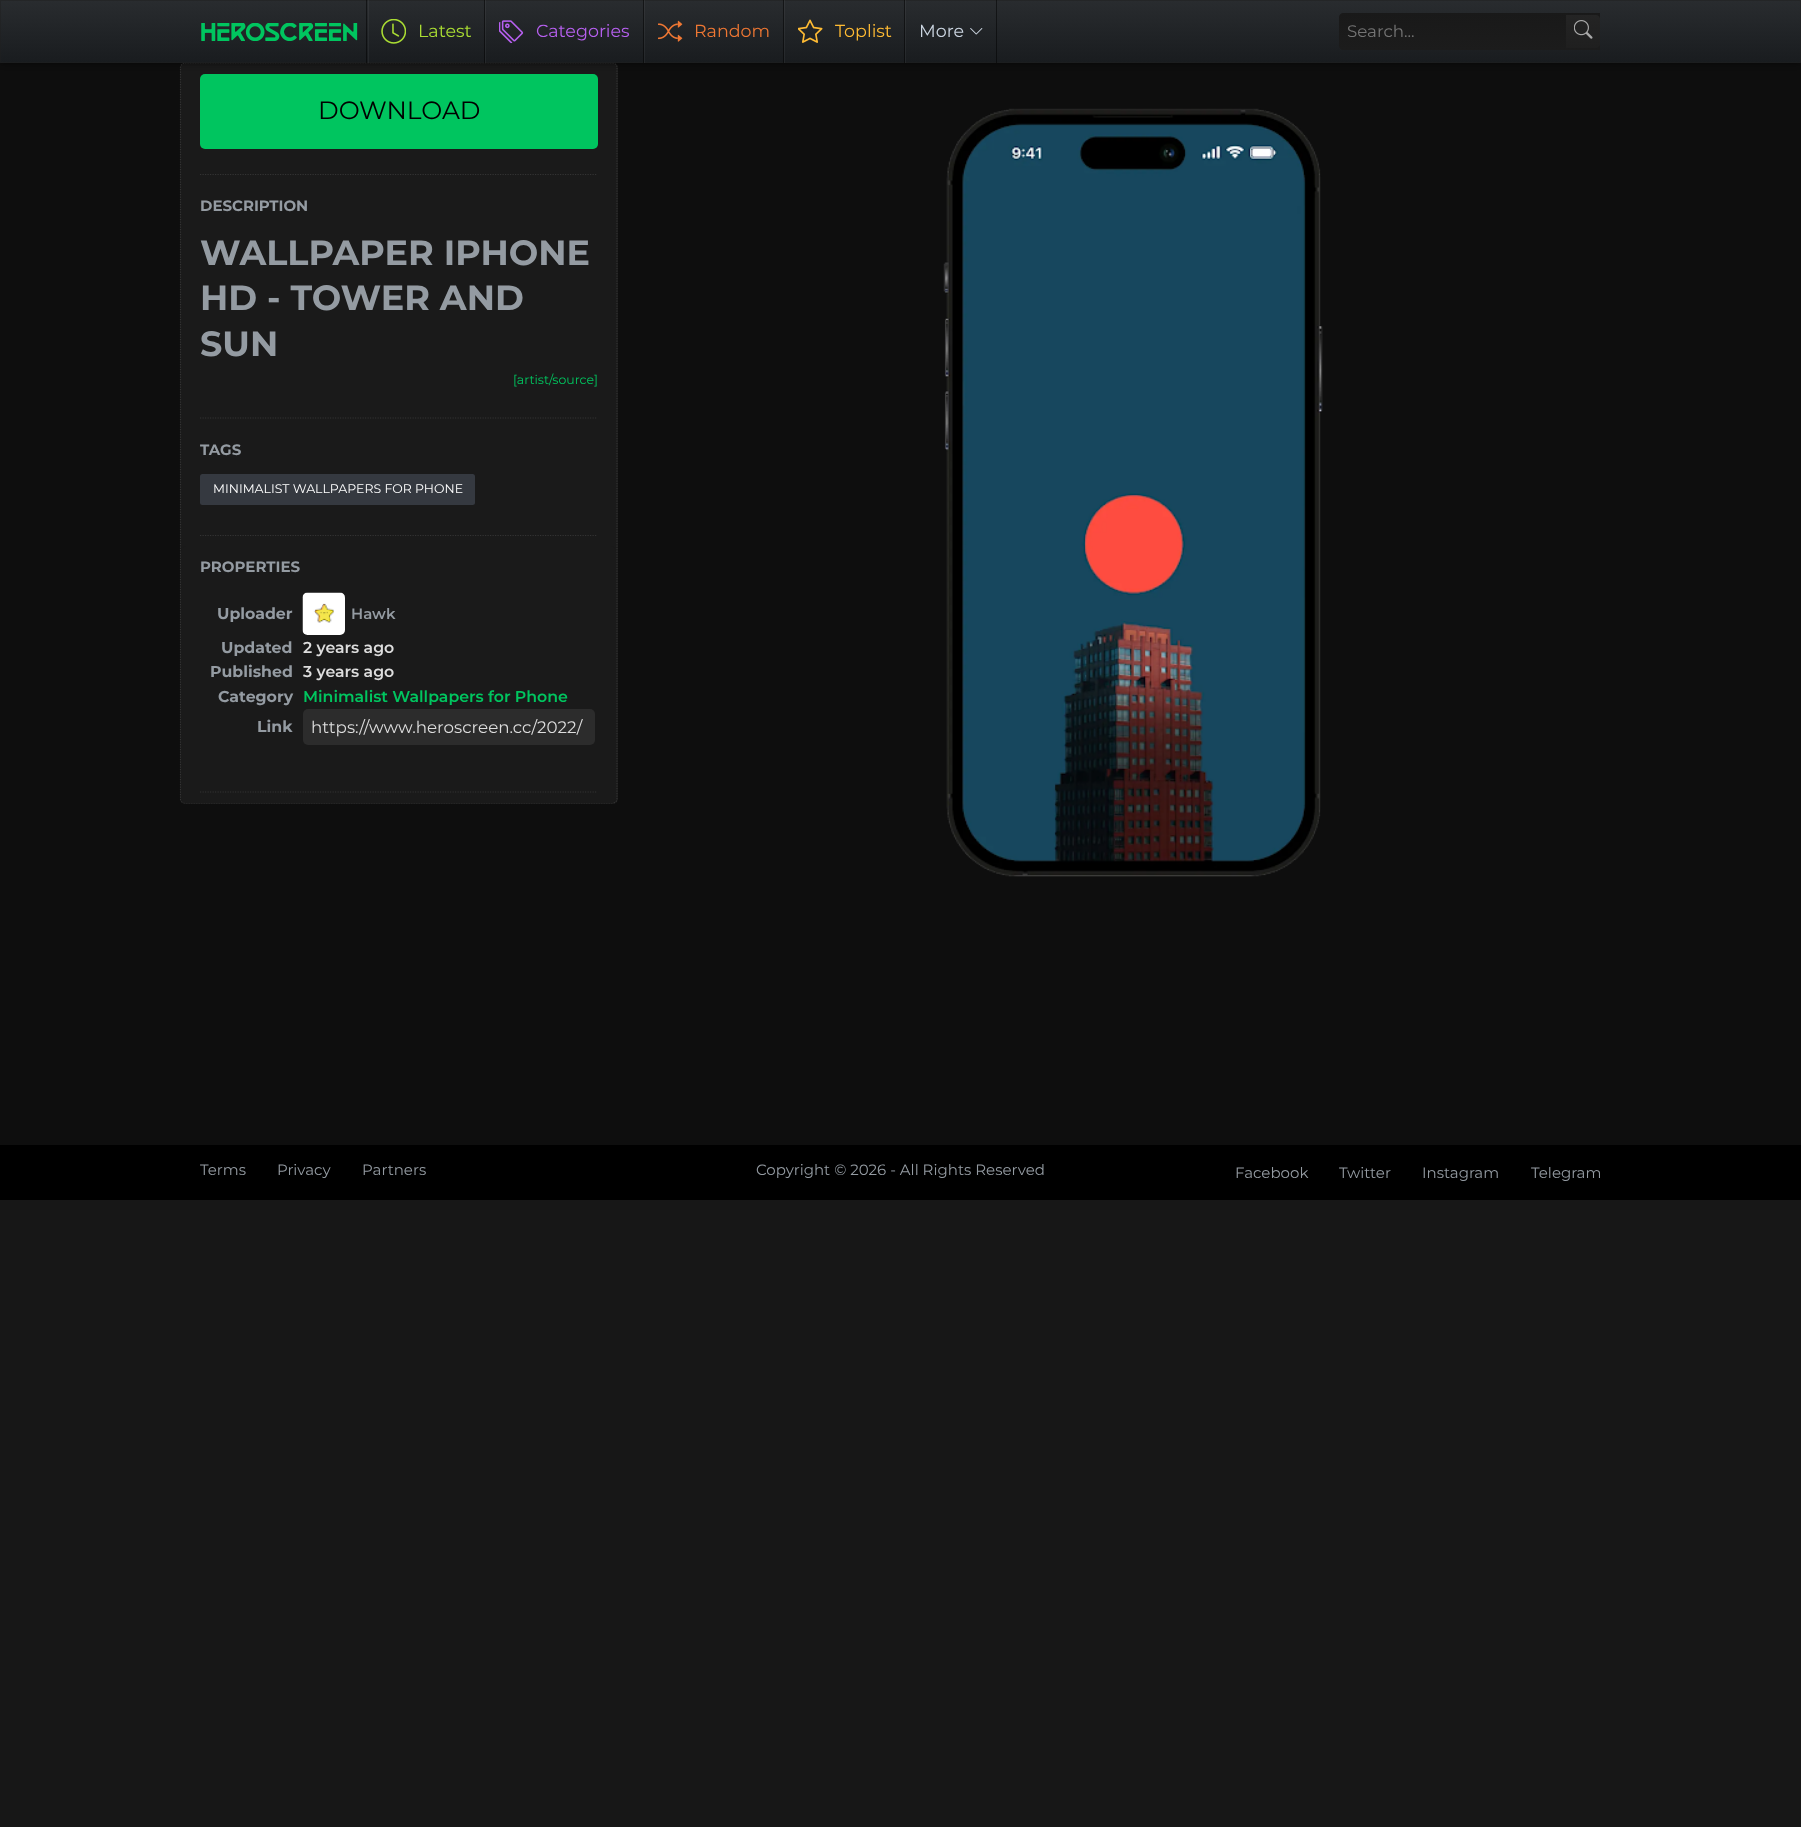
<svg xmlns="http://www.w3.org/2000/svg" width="1801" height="1827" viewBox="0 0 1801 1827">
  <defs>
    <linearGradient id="g1" gradientUnits="userSpaceOnUse" x1="901" y1="0" x2="901" y2="63"><stop offset="0" stop-color="#292c2f"/><stop offset="1" stop-color="#191c1f"/></linearGradient>
    <linearGradient id="g2" gradientUnits="userSpaceOnUse" x1="1469" y1="12" x2="1469" y2="50"><stop offset="0" stop-color="#191919"/><stop offset="1" stop-color="#1c1c1c"/></linearGradient>
    <linearGradient id="g3" gradientUnits="userSpaceOnUse" x1="1583" y1="15" x2="1583" y2="48"><stop offset="0" stop-color="#242424"/><stop offset="1" stop-color="#1f1f1f"/></linearGradient>
  </defs>
  <rect width="100%" height="100%" fill="#171717"/>
  <path d="M0 63h1801v1082H0z" fill="#0e0e0e"/>
  <rect x="180" y="63" width="438" height="741" rx="5" fill="#1a1a1a"/>
  <path d="M185 63H612.5C615 63 617 65 617 67.5V799C617 801 615 803 612.5 803H185C182.5 803 180.5 801 180.5 799V67.5C180.5 65 182.5 63 185 63Z" fill="none" stroke="#333" stroke-width="1.2" stroke-dasharray="1.25 1.25"/>
  <path d="M0 0h1801v63H0z" fill="#0000008c" filter="blur(3px)"/>
  <path d="M0 0h1801v63H0z" fill="url(#g1)"/>
  <path d="M0.5 0.5h1800v62H0.5z" fill="none" stroke="#1f1f1f80"/>
  <path d="M366 0h1v63H366z" fill="#00000080"/>
  <image x="201" y="23" width="157" height="18" href="img/1.png"/>
  <path d="M484 0h1v63H484z" fill="#00000080"/>
  <path d="M368 0h1v63H368z" fill="#ffffff0d"/>
  <image x="381" y="19" width="25" height="25" href="img/2.png"/>
  <path d="M643 0h1v63H643z" fill="#00000080"/>
  <path d="M485 0h1v63H485z" fill="#ffffff0d"/>
  <image x="499" y="20" width="25" height="24" href="img/3.png"/>
  <path d="M783 0h1v63H783z" fill="#00000080"/>
  <path d="M644 0h1v63H644z" fill="#ffffff0d"/>
  <image x="658" y="20" width="25" height="22" href="img/4.png"/>
  <path d="M904 0h1v63H904z" fill="#00000080"/>
  <path d="M784 0h1v63H784z" fill="#ffffff0d"/>
  <image x="798" y="19" width="25" height="24" href="img/5.png"/>
  <path d="M996 0h1v63H996z" fill="#00000080"/>
  <path d="M905 0h1v63H905z" fill="#ffffff0d"/>
  <image x="970" y="28" width="13" height="7" href="img/6.png"/>
  <path d="M1343 13H1600V50H1343C1341 50 1339 48 1339 46V17C1339 15 1341 13 1343 13Z" fill="url(#g2)"/>
  <path d="M1566 15H1596C1598 15 1600 17 1600 19V44C1600 46 1598 48 1596 48H1566Z" fill="url(#g3)"/>
  <image x="1574" y="20" width="19" height="19" href="img/7.png"/>
  <rect x="200" y="74" width="398" height="75" rx="5" fill="#00c55f"/>
  <path d="M200 174.5H597.5" fill="none" stroke="#333" stroke-width="1.2" stroke-dasharray="1.25 1.25"/>
  <path d="M200 418H597.5" fill="none" stroke="#333" stroke-width="1.2" stroke-dasharray="1.25 1.25"/>
  <rect x="200" y="474" width="275" height="31" rx="2.5" fill="#353940"/>
  <path d="M200 535.5H597.5" fill="none" stroke="#333" stroke-width="1.2" stroke-dasharray="1.25 1.25"/>
  <rect x="181" y="546" width="435" height="257" rx="5" fill="#1a1a1a"/>
  <image x="302" y="592" width="43" height="43" href="img/8.png"/>
  <rect x="303" y="709" width="292" height="36" rx="5" fill="#2c2c2c"/>
  <path d="M200 792H597.5" fill="none" stroke="#333" stroke-width="1.2" stroke-dasharray="1.25 1.25"/>
  <image x="943" y="108" width="380" height="769" href="img/9.png"/>
  <path d="M0 1145h1801v55H0z" fill="#000"/>
  <text x="418" y="37" font-family="Montserrat" font-size="17.5" font-weight="100" fill="#ad3">Latest</text>
  <text x="536" y="37" font-family="Montserrat" font-size="17.5" font-weight="100" fill="#b760f0">Categories</text>
  <text x="694" y="37" font-family="Montserrat" font-size="17.5" font-weight="100" fill="#e73">Random</text>
  <text x="835" y="37" font-family="Montserrat" font-size="17.5" font-weight="100" fill="#fb3">Toplist</text>
  <text x="919" y="37" font-family="Montserrat" font-size="17.5" font-weight="100" fill="#cbd5e1">More</text>
  <text x="1347" y="37" font-family="Montserrat" font-size="16.7" font-weight="100" fill="#757575">Search...</text>
  <text x="318" y="119" font-family="Montserrat" font-size="25" font-weight="100" fill="#000">DOWNLOAD</text>
  <text x="200" y="211" font-family="Montserrat" font-size="15" font-weight="bold" fill="#949ba2">DESCRIPTION</text>
  <g font-family="Montserrat" font-size="35" font-weight="bold" fill="#949ba2">
    <text x="200" y="265">WALLPAPER IPHONE</text>
    <text x="200" y="310">HD - TOWER AND</text>
    <text x="200" y="356">SUN</text>
  </g>
  <text x="513" y="384" font-family="Montserrat" font-size="12.5" font-weight="100" fill="#00c55f">[artist/source]</text>
  <text x="200" y="455" font-family="Montserrat" font-size="15" font-weight="bold" fill="#949ba2">TAGS</text>
  <text x="213" y="493" font-family="Montserrat" font-size="12.5" font-weight="100" fill="#fff">MINIMALIST WALLPAPERS FOR PHONE</text>
  <text x="200" y="572" font-family="Montserrat" font-size="15" font-weight="bold" fill="#949ba2">PROPERTIES</text>
  <text x="217" y="619" font-family="Montserrat" font-size="15.75" font-weight="bold" fill="#949ba2">Uploader</text>
  <text x="351" y="619" font-family="Montserrat" font-size="15" font-weight="600" fill="#949ba2">Hawk</text>
  <text x="221" y="653" font-family="Montserrat" font-size="15.75" font-weight="bold" fill="#949ba2">Updated</text>
  <text x="303" y="653" font-family="Montserrat" font-size="15.75" font-weight="600" fill="#ddd">2 years ago</text>
  <text x="210" y="677" font-family="Montserrat" font-size="15.75" font-weight="bold" fill="#949ba2">Published</text>
  <text x="303" y="677" font-family="Montserrat" font-size="15.75" font-weight="600" fill="#ddd">3 years ago</text>
  <text x="218" y="702" font-family="Montserrat" font-size="15.75" font-weight="bold" fill="#949ba2">Category</text>
  <text x="303" y="702" font-family="Montserrat" font-size="15.75" font-weight="600" fill="#00c55f">Minimalist Wallpapers for Phone</text>
  <text x="257" y="732" font-family="Montserrat" font-size="15.75" font-weight="bold" fill="#949ba2">Link</text>
  <text x="311" y="733" font-family="Montserrat" font-size="16.7" font-weight="100" fill="#ddd">https://www.heroscreen.cc/2022/</text>
  <g font-family="Montserrat" font-size="15" font-weight="100" fill="#949ba2">
    <text x="200" y="1175">Terms</text>
    <text x="277" y="1175">Privacy</text>
    <text x="362" y="1175">Partners</text>
    <text x="756" y="1175">Copyright © 2026 - All Rights Reserved</text>
    <text x="1235" y="1178">Facebook</text>
    <text x="1339" y="1178">Twitter</text>
    <text x="1422" y="1178">Instagram</text>
    <text x="1531" y="1178">Telegram</text>
  </g>
</svg>
